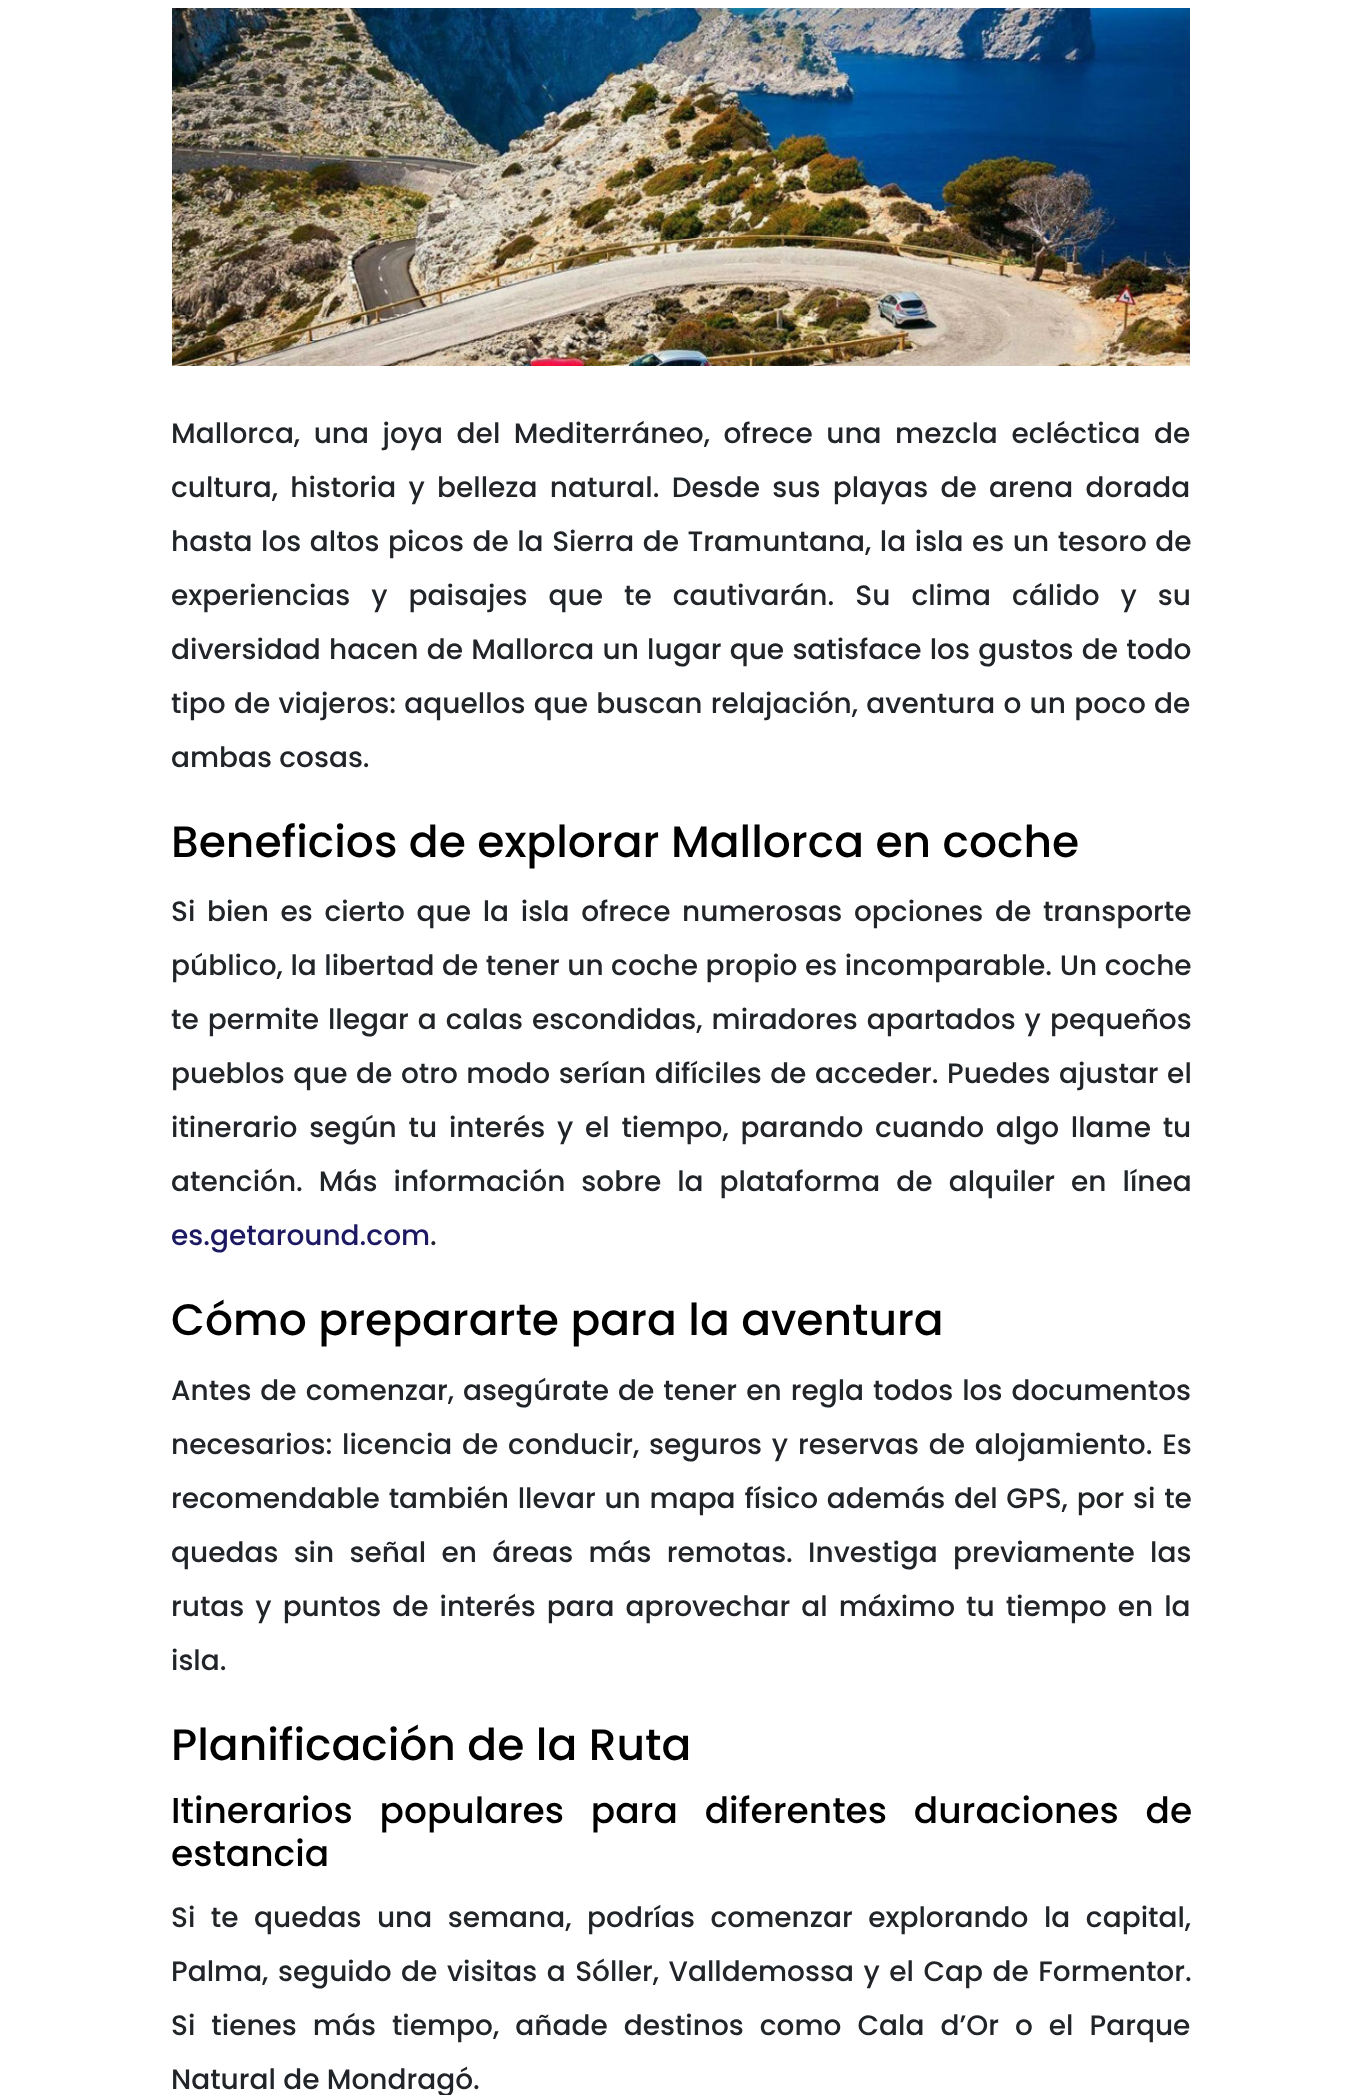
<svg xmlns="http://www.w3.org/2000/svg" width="1361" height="2095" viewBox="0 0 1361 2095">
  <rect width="100%" height="100%" fill="#fff"/>
  <image x="172" y="8" width="1018" height="358" href="img/1.png"/>
  <g font-family="Poppins" font-size="28" font-weight="500" fill="#212529">
    <text x="171" y="443" word-spacing="6.25">Mallorca, una joya del Mediterráneo, ofrece una mezcla ecléctica de</text>
    <text x="171" y="497" word-spacing="5">cultura, historia y belleza natural. Desde sus playas de arena dorada</text>
    <text x="171" y="551" word-spacing="1.25">hasta los altos picos de la Sierra de Tramuntana, la isla es un tesoro de</text>
    <text x="171" y="605" word-spacing="13.75">experiencias y paisajes que te cautivarán. Su clima cálido y su</text>
    <text x="171" y="659" word-spacing="1">diversidad hacen de Mallorca un lugar que satisface los gustos de todo</text>
    <text x="171" y="713" word-spacing="1">tipo de viajeros: aquellos que buscan relajación, aventura o un poco de</text>
    <text x="171" y="767">ambas cosas.</text>
  </g>
  <text x="171" y="857" font-family="Poppins" font-size="44" font-weight="500" fill="#000">Beneficios de explorar Mallorca en coche</text>
  <g font-family="Poppins" font-size="28" font-weight="500" fill="#212529">
    <text x="171" y="921" word-spacing="4.4">Si bien es cierto que la isla ofrece numerosas opciones de transporte</text>
    <text x="171" y="975" word-spacing="0.25">público, la libertad de tener un coche propio es incomparable. Un coche</text>
    <text x="171" y="1029" word-spacing="1.75">te permite llegar a calas escondidas, miradores apartados y pequeños</text>
    <text x="171" y="1083" word-spacing="1.25">pueblos que de otro modo serían difíciles de acceder. Puedes ajustar el</text>
    <text x="171" y="1137" word-spacing="4.5">itinerario según tu interés y el tiempo, parando cuando algo llame tu</text>
    <text x="171" y="1191" word-spacing="8.75">atención. Más información sobre la plataforma de alquiler en línea</text>
  </g>
  <text x="171" y="1245" font-family="Poppins" font-size="28" font-weight="500" fill="#1d1862">es.getaround.com</text>
  <text x="430" y="1245" font-family="Poppins" font-size="28" font-weight="500" fill="#212529">.</text>
  <text x="171" y="1335" font-family="Poppins" font-size="44" font-weight="500" fill="#000">Cómo prepararte para la aventura</text>
  <g font-family="Poppins" font-size="28" font-weight="500" fill="#212529">
    <text x="171" y="1400" word-spacing="1.75">Antes de comenzar, asegúrate de tener en regla todos los documentos</text>
    <text x="171" y="1454" word-spacing="2.5">necesarios: licencia de conducir, seguros y reservas de alojamiento. Es</text>
    <text x="171" y="1508" word-spacing="1.5">recomendable también llevar un mapa físico además del GPS, por si te</text>
    <text x="171" y="1562" word-spacing="8">quedas sin señal en áreas más remotas. Investiga previamente las</text>
    <text x="171" y="1616" word-spacing="3.75">rutas y puntos de interés para aprovechar al máximo tu tiempo en la</text>
    <text x="171" y="1670">isla.</text>
  </g>
  <text x="171" y="1760" font-family="Poppins" font-size="44" font-weight="500" fill="#000">Planificación de la Ruta</text>
  <g font-family="Poppins" font-size="36" font-weight="500" fill="#000">
    <text x="171" y="1823" word-spacing="17.5">Itinerarios populares para diferentes duraciones de</text>
    <text x="171" y="1866">estancia</text>
  </g>
  <g font-family="Poppins" font-size="28" font-weight="500" fill="#212529">
    <text x="171" y="1927" word-spacing="8.25">Si te quedas una semana, podrías comenzar explorando la capital,</text>
    <text x="171" y="1981" word-spacing="2.25">Palma, seguido de visitas a Sóller, Valldemossa y el Cap de Formentor.</text>
    <text x="171" y="2035" word-spacing="8.75">Si tienes más tiempo, añade destinos como Cala d’Or o el Parque</text>
    <text x="171" y="2089">Natural de Mondragó.</text>
  </g>
</svg>
